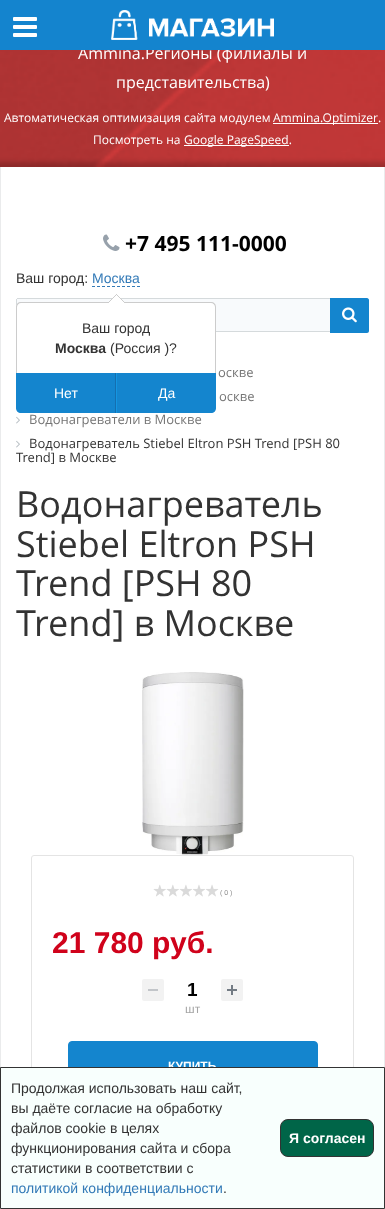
<svg xmlns="http://www.w3.org/2000/svg" width="385" height="1209" viewBox="0 0 385 1209">
  <rect width="100%" height="100%" fill="#fff"/>
  <image x="0" y="50" width="385" height="117" href="img/2.png"/>
  <path d="M273 123h105v1H273z" fill="#fff"/>
  <path d="M184 145h105v1H184z" fill="#fff"/>
  <path d="M384 167h1v900H384z" fill="#eaebec"/>
  <path d="M0 167h1v900H0z" fill="#eaebec"/>
  <image x="103" y="234" width="17" height="17" href="img/4.png"/>
  <path d="M92 286.5H140" fill="none" stroke="#337ab7" stroke-dasharray="3 2"/>
  <path d="M18 298H330V332H18C17 332 16 331 16 330V300C16 299 17 298 18 298Z" fill="#f8fafc"/>
  <path d="M17 298h313v1H17z" fill="#d5dadc"/>
  <path d="M216 331h114v1H216z" fill="#d5dadc"/>
  <path d="M16 299h1v8H16z" fill="#d5dadc"/>
  <path d="M330 298H367C368 298 369 299 369 300V331C369 332 368 333 367 333H330Z" fill="#1485ce"/>
  <image x="342" y="307" width="15" height="16" href="img/5.png"/>
  <image x="16" y="416" width="4" height="8" href="img/6.png"/>
  <image x="16" y="440" width="4" height="8" href="img/6.png"/>
  <image x="142" y="672" width="102" height="183" href="img/7.png"/>
  <image x="142" y="672" width="102" height="183" href="img/8.png"/>
  <rect x="31.5" y="855.5" width="322" height="256" rx="2.5" fill="none" stroke="#e4e4e4"/>
  <path d="M153 884h66v13H153z" fill="#dadada"/>
  <image x="152" y="876" width="68" height="30" href="img/9.png"/>
  <rect x="142" y="979" width="22" height="22" rx="2" fill="#f2f2f2"/>
  <path d="M148 989h10v2H148z" fill="#c2c5c9"/>
  <rect x="221" y="979" width="22" height="22" rx="2" fill="#f2f2f2"/>
  <image x="227" y="985" width="10" height="10" href="img/10.png"/>
  <rect x="68.5" y="1041.5" width="249" height="49" rx="3.5" fill="#1485ce" stroke="#1485ce"/>
  <rect x="16" y="302" width="200" height="111" rx="5" fill="#fff"/>
  <path d="M21 302H211C214 302 216 304 216 307V373H16V307C16 304 18 302 21 302ZM21 303H211C213 303 215 305 215 307V373H17V307C17 305 19 303 21 303Z" fill="#ccc" fill-rule="evenodd"/>
  <image x="109" y="294" width="15" height="9" href="img/11.png"/>
  <path d="M16 373H116V413H21C18 413 16 411 16 408Z" fill="#1485ce"/>
  <path d="M115 373h1v40H115z" fill="#146fb0"/>
  <path d="M116 373H216V408C216 411 214 413 211 413H116Z" fill="#1485ce"/>
  <path d="M116 373h1v40H116z" fill="#1496e2"/>
  <g font-family="Open Sans" font-size="16" fill="#fff">
    <text x="78" y="59">Ammina.Регионы (филиалы и</text>
    <text x="116" y="88">представительства)</text>
  </g>
  <g font-family="Open Sans" font-size="12" fill="#fff">
    <text x="4" y="122">Автоматическая оптимизация сайта модулем</text>
    <text x="273" y="122">Ammina.Optimizer.</text>
    <text x="93" y="144">Посмотреть на</text>
    <text x="184" y="144">Google PageSpeed.</text>
  </g>
  <path d="M0 0h385v50H0z" fill="#1484ce"/>
  <image x="13" y="17" width="24" height="20" href="img/1.png"/>
  <image x="111" y="10" width="163" height="30" href="img/3.png"/>
  <text x="125" y="251" font-family="Open Sans" font-size="21" font-weight="bold" fill="#000">+7 495 111-0000</text>
  <text x="16" y="283" font-family="Liberation Sans" font-size="14" fill="#333">Ваш город:</text>
  <text x="92" y="283" font-family="Liberation Sans" font-size="14" fill="#337ab7">Москва</text>
  <g font-family="Open Sans" font-size="13" fill="#757575">
    <text x="218" y="377">оскве</text>
    <text x="219" y="401">оскве</text>
    <text x="29" y="424">Водонагреватели в Москве</text>
  </g>
  <g font-family="Open Sans" font-size="13" fill="#333">
    <text x="29" y="448">Водонагреватель Stiebel Eltron PSH Trend [PSH 80</text>
    <text x="16" y="462">Trend] в Москве</text>
  </g>
  <g font-family="Open Sans" font-size="36" fill="#333">
    <text x="16" y="517">Водонагреватель</text>
    <text x="16" y="557">Stiebel Eltron PSH</text>
    <text x="16" y="596">Trend [PSH 80</text>
    <text x="16" y="636">Trend] в Москве</text>
  </g>
  <text x="220" y="895" font-family="Liberation Sans" font-size="7" fill="#8d8d8d">( 0 )</text>
  <text x="52" y="953" font-family="Liberation Sans" font-size="30" font-weight="bold" fill="#d0021b">21 780 руб.</text>
  <text x="187" y="996" font-family="Liberation Sans" font-size="19" font-weight="bold" fill="#000">1</text>
  <text x="185" y="1013" font-family="Liberation Sans" font-size="12" fill="#a5a5a5">шт</text>
  <text x="168" y="1070" font-family="Liberation Sans" font-size="12" font-weight="bold" fill="#fff">КУПИТЬ</text>
  <text x="82" y="333" font-family="Liberation Sans" font-size="14" fill="#333">Ваш город</text>
  <text x="55" y="353" font-family="Liberation Sans" font-size="14" font-weight="bold" fill="#333">Москва</text>
  <text x="110" y="353" font-family="Liberation Sans" font-size="14" fill="#333">(Россия )?</text>
  <g font-family="Liberation Sans" font-size="14" fill="#fff">
    <text x="54" y="398">Нет</text>
    <text x="158" y="398">Да</text>
  </g>
  <path d="M0.5 1067.5h384v141H0.5z" fill="#f8fffd" stroke="#333"/>
  <g font-family="Liberation Sans" font-size="14" fill="#333">
    <text x="11" y="1093">Продолжая использовать наш сайт,</text>
    <text x="11" y="1113">вы даёте согласие на обработку</text>
    <text x="11" y="1133">файлов cookie в целях</text>
    <text x="11" y="1153">функционирования сайта и сбора</text>
    <text x="11" y="1173">статистики в соответствии с</text>
  </g>
  <text x="11" y="1193" font-family="Liberation Sans" font-size="14" fill="#337ab7">политикой конфиденциальности</text>
  <text x="223" y="1193" font-family="Liberation Sans" font-size="14" fill="#333">.</text>
  <rect x="280.5" y="1119.5" width="93" height="37" rx="7.5" fill="#006548" stroke="#333"/>
  <text x="289" y="1143" font-family="Liberation Sans" font-size="14" font-weight="bold" fill="#fff">Я согласен</text>
</svg>
